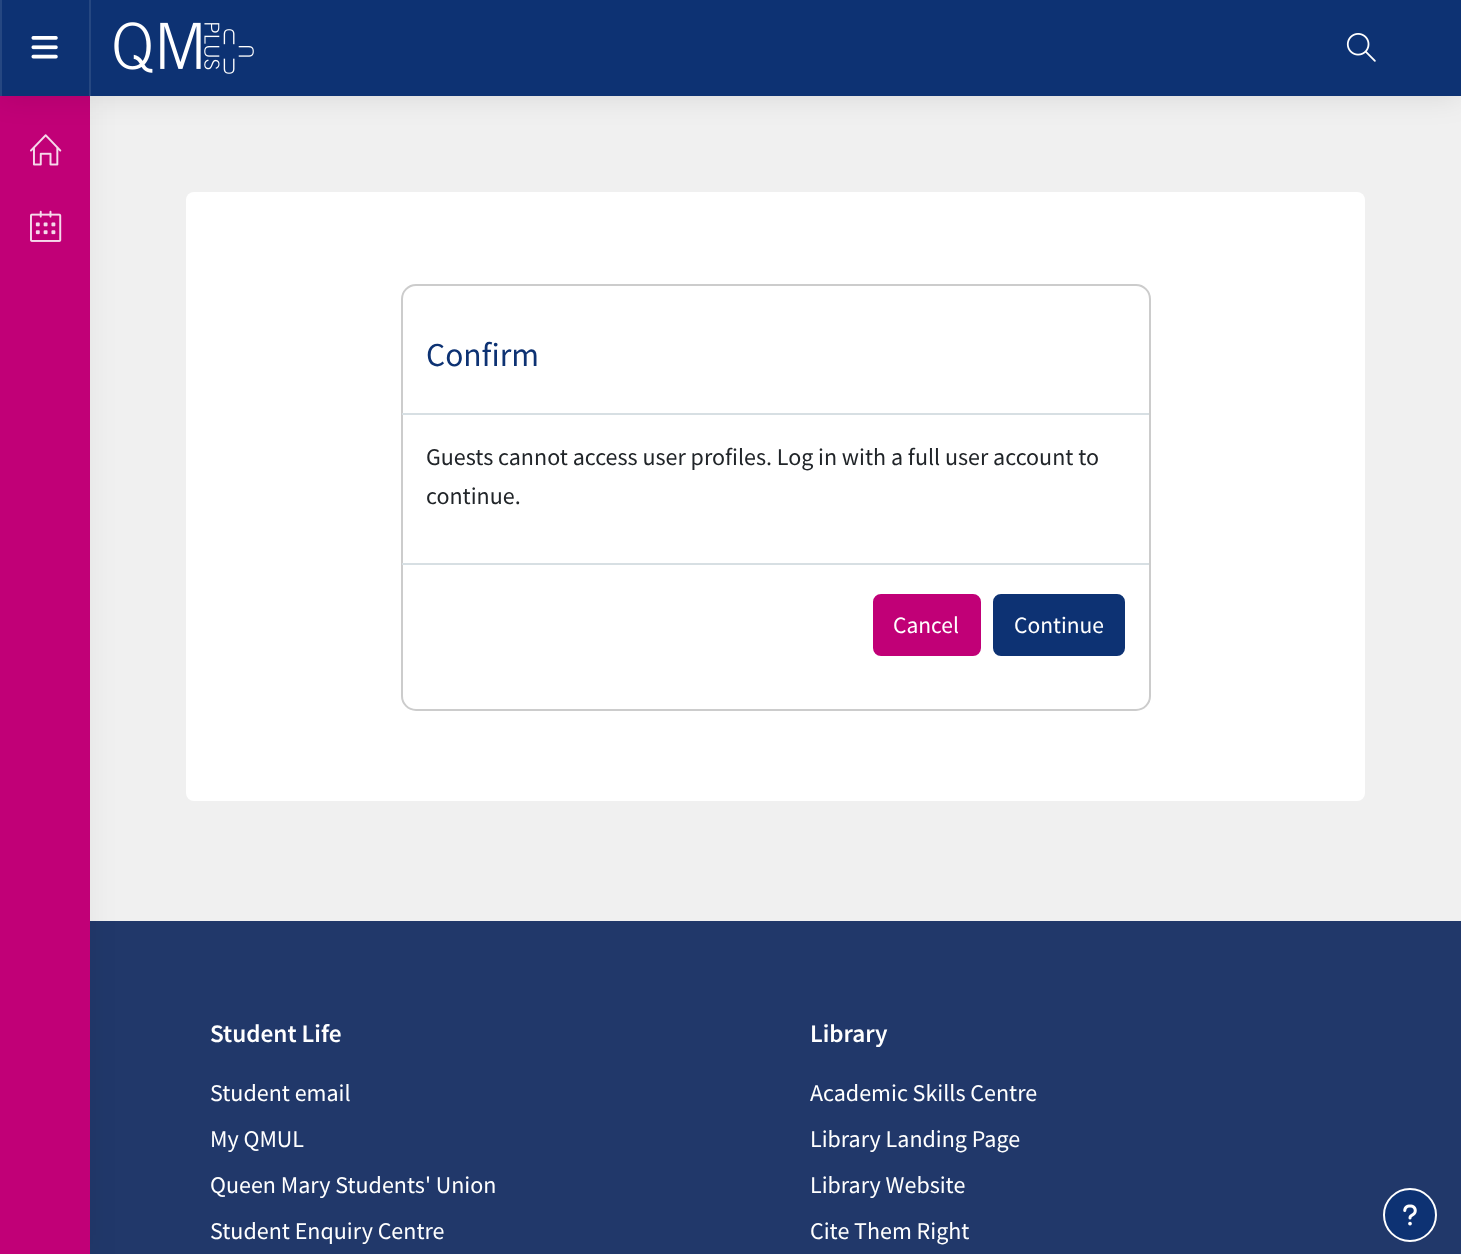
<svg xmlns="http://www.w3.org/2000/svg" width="1461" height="1254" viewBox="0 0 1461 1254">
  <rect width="100%" height="100%" fill="#f0f0f0"/>
  <path d="M90 921h1371v333H90z" fill="#21386a"/>
  <path d="M0 96h90v1158H0z" fill="#0000000d" filter="blur(15px)"/>
  <path d="M0 96h90v1158H0z" fill="#c10077"/>
  <image x="30" y="134" width="32" height="32" href="img/4.png"/>
  <path d="M0 0h1461v96H0z" fill="#0000001a" filter="blur(15px)"/>
  <path d="M2 0h1459v96H2z" fill="#0d3273"/>
  <path d="M89 0h2v96H89z" fill="#254781"/>
  <path d="M0 0h2v96H0z" fill="#254781"/>
  <image x="31" y="36" width="27" height="23" href="img/1.png"/>
  <image x="114" y="22" width="140" height="52" href="img/2.png"/>
  <image x="1346" y="33" width="30" height="29" href="img/3.png"/>
  <image x="30" y="210" width="32" height="32" href="img/5.png"/>
  <rect x="186" y="192" width="1179" height="609" rx="8" fill="#fff"/>
  <rect x="402" y="285" width="748" height="425" rx="14" fill="none" stroke="#ccc" stroke-width="2"/>
  <path d="M402 413h747v2H402z" fill="#d7dfe3"/>
  <path d="M402 563h747v2H402z" fill="#d7dfe3"/>
  <rect x="874.5" y="595.5" width="105" height="59" rx="6.5" fill="#c10077" stroke="#c10077" stroke-width="3"/>
  <rect x="994.5" y="595.5" width="129" height="59" rx="6.5" fill="#0d3273" stroke="#0d3273" stroke-width="3"/>
  <circle cx="1410" cy="1215" r="26" fill="#0d3273" stroke="#fff" stroke-width="2"/>
  <image x="1403" y="1204" width="14" height="22" href="img/6.png"/>
  <text x="426" y="366" font-family="Source Sans Pro" font-size="33.5" fill="#0d3273">Confirm</text>
  <g font-family="Source Sans Pro" font-size="24" fill="#212529">
    <text x="426" y="465">Guests cannot access user profiles. Log in with a full user account to</text>
    <text x="426" y="504">continue.</text>
  </g>
  <g font-family="Source Sans Pro" font-size="23.5" fill="#fff">
    <text x="893" y="633">Cancel</text>
    <text x="1014" y="633">Continue</text>
  </g>
  <text x="210" y="1042" font-family="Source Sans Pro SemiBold" font-size="25.25" font-weight="600" fill="#fff">Student Life</text>
  <g font-family="Source Sans Pro" font-size="24" fill="#fff">
    <text x="210" y="1101">Student email</text>
    <text x="210" y="1147">My QMUL</text>
    <text x="210" y="1193">Queen Mary Students' Union</text>
    <text x="210" y="1239">Student Enquiry Centre</text>
  </g>
  <text x="810" y="1042" font-family="Source Sans Pro SemiBold" font-size="25.25" font-weight="600" fill="#fff">Library</text>
  <g font-family="Source Sans Pro" font-size="24" fill="#fff">
    <text x="810" y="1101">Academic Skills Centre</text>
    <text x="810" y="1147">Library Landing Page</text>
    <text x="810" y="1193">Library Website</text>
    <text x="810" y="1239">Cite Them Right</text>
  </g>
</svg>
